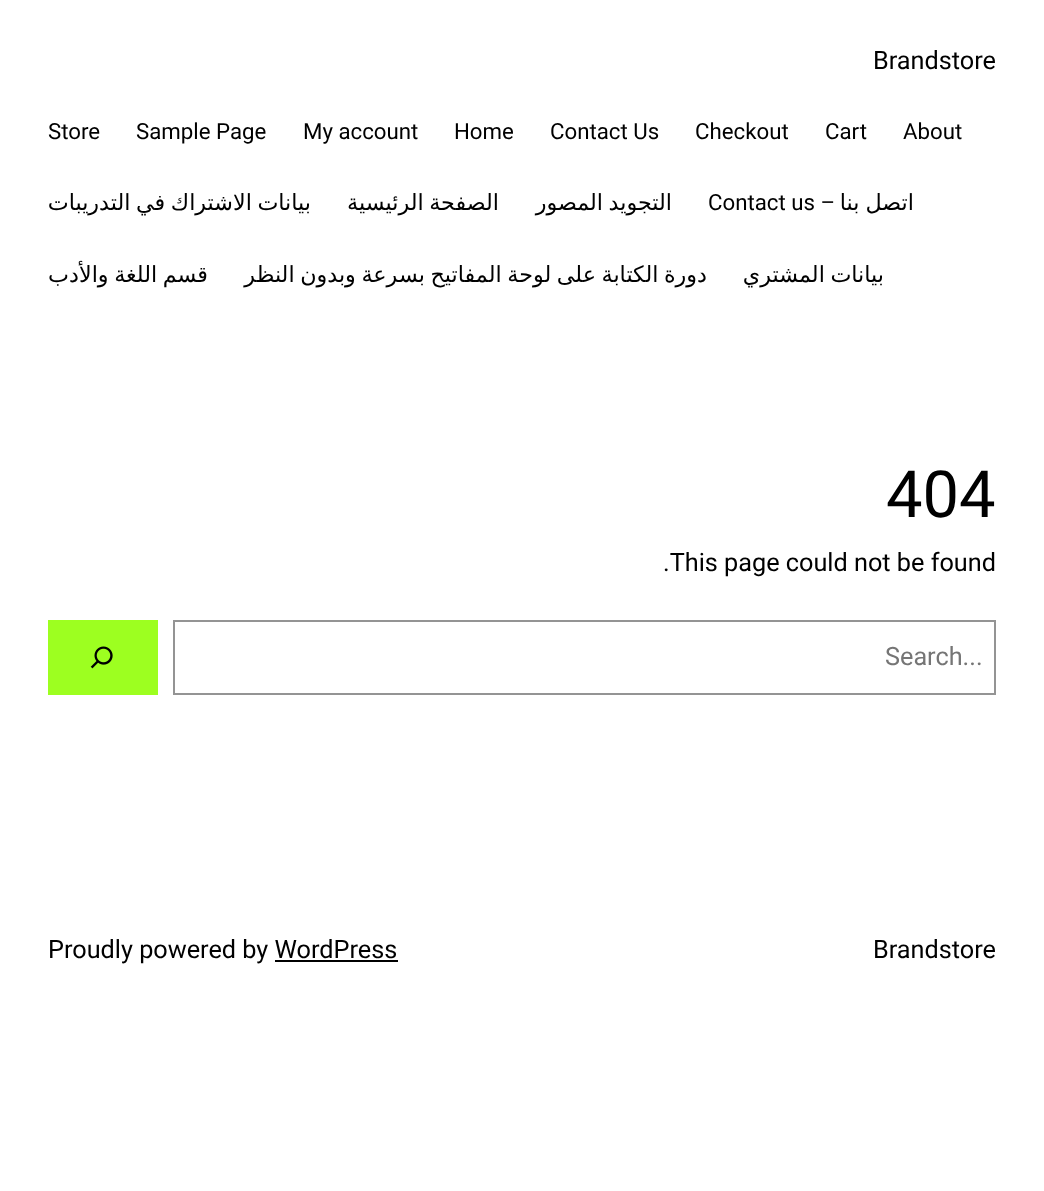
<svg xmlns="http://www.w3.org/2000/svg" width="1044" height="1191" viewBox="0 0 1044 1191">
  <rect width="100%" height="100%" fill="#fff"/>
  <path d="M48 620h110v75H48z" fill="#9dff20"/>
  <image x="90" y="646" width="23" height="23" href="img/1.png"/>
  <path d="M174 621h821v73H174z" fill="none" stroke="#949494" stroke-width="2"/>
  <path d="M275 960h123v2H275z" fill="#000"/>
  <text x="873" y="69" font-family="Roboto" font-size="25.25" fill="#000">Brandstore</text>
  <g font-family="Roboto" font-size="22.25" fill="#000">
    <text x="48" y="139">Store</text>
    <text x="136" y="139">Sample Page</text>
    <text x="303" y="139">My account</text>
    <text x="454" y="139">Home</text>
    <text x="550" y="139">Contact Us</text>
    <text x="695" y="139">Checkout</text>
    <text x="825" y="139">Cart</text>
    <text x="903" y="139">About</text>
  </g>
  <g font-family="DejaVu Sans" font-size="22.25" direction="rtl" fill="#000">
    <text x="311" y="210" word-spacing="-1.5">بيانات الاشتراك في التدريبات</text>
    <text x="499" y="210" word-spacing="-1.5">الصفحة الرئيسية</text>
    <text x="672" y="210" word-spacing="-1.5">التجويد المصور</text>
  </g>
  <text x="708" y="210" font-family="Roboto" font-size="22.25" fill="#000">Contact us</text>
  <text x="835" y="210" font-family="Roboto" font-size="22.25" direction="rtl" fill="#000">–</text>
  <g font-family="DejaVu Sans" font-size="22.25" direction="rtl" fill="#000">
    <text x="914" y="210" word-spacing="-1">اتصل بنا</text>
    <text x="208" y="282" word-spacing="-1.5">قسم اللغة والأدب</text>
    <text x="707" y="282" word-spacing="-1.5">دورة الكتابة على لوحة المفاتيح بسرعة وبدون النظر</text>
    <text x="884" y="282" word-spacing="-1.5">بيانات المشتري</text>
  </g>
  <text x="886" y="517" font-family="Roboto" font-size="65" fill="#000">404</text>
  <text x="663" y="571" font-family="Roboto" font-size="25.25" fill="#000">.This page could not be found</text>
  <text x="885" y="665" font-family="Roboto" font-size="25.25" fill="#757575">Search...</text>
  <g font-family="Roboto" font-size="25.25" fill="#000">
    <text x="48" y="958">Proudly powered by WordPress</text>
    <text x="873" y="958">Brandstore</text>
  </g>
</svg>
